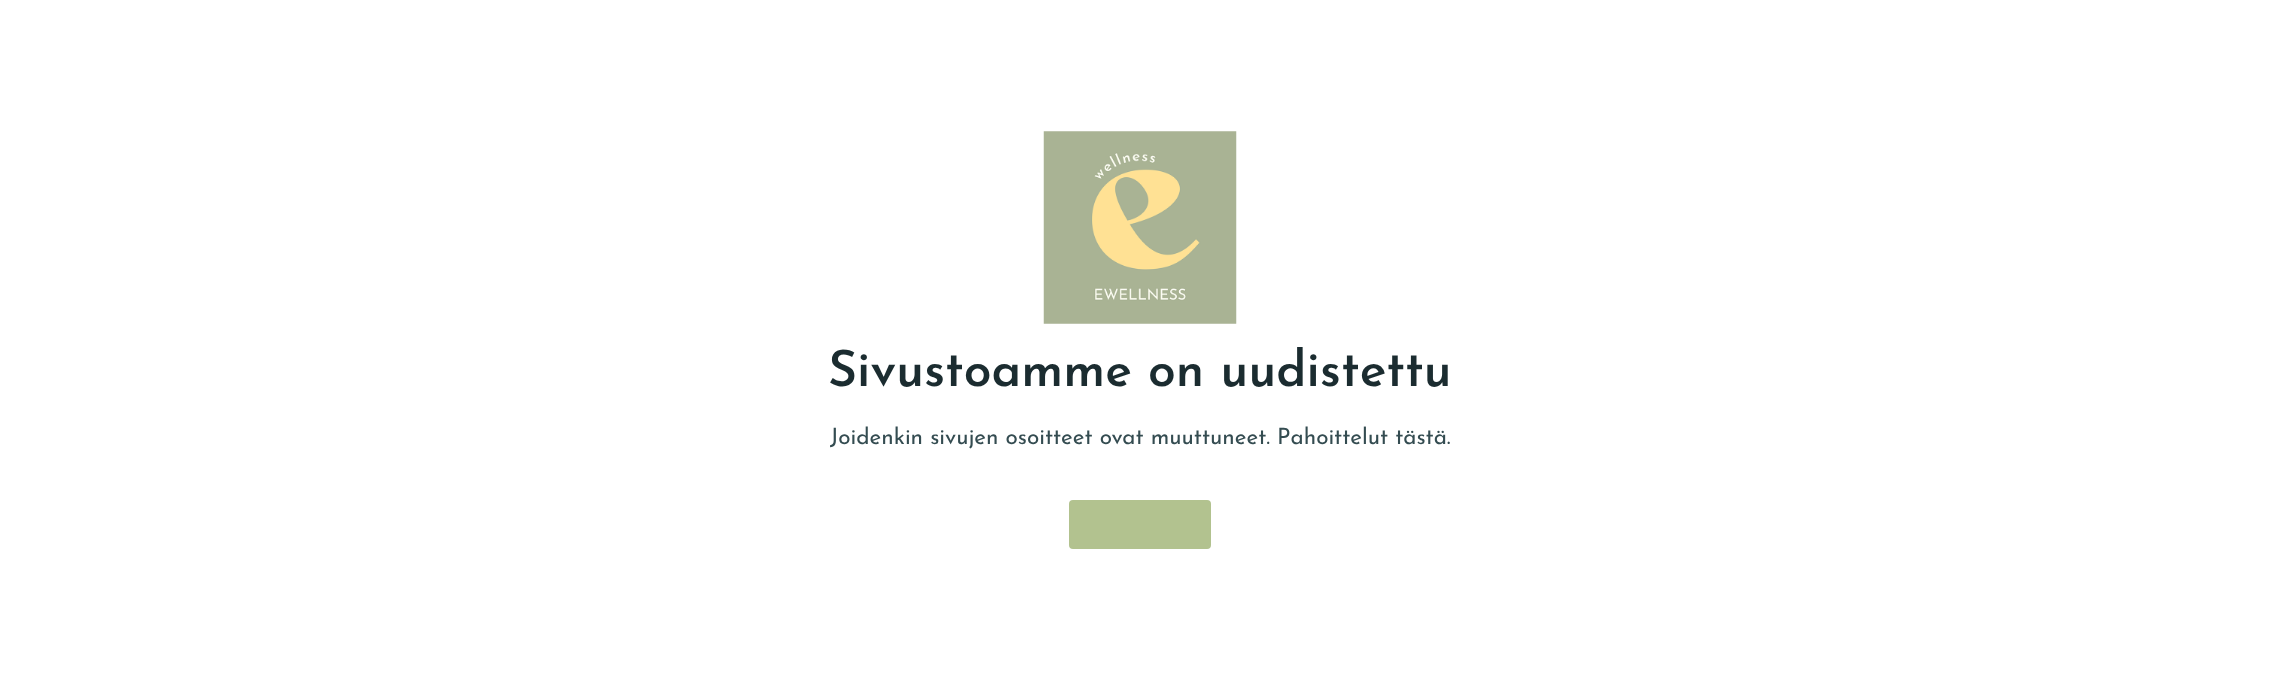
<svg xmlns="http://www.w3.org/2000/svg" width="2280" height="679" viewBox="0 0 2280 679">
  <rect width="100%" height="100%" fill="#fff"/>
  <image x="1043" y="131" width="194" height="193" href="img/1.png"/>
  <rect x="1069" y="500" width="142" height="49" rx="4" fill="#b2c28f"/>
  <text x="828" y="386" font-family="Josefin Sans" font-size="50" font-weight="600" fill="#1b2c30">Sivustoamme on uudistettu</text>
  <text x="830" y="444" font-family="Josefin Sans" font-size="22.5" fill="#344c51">Joidenkin sivujen osoitteet ovat muuttuneet. Pahoittelut tästä.</text>
</svg>
